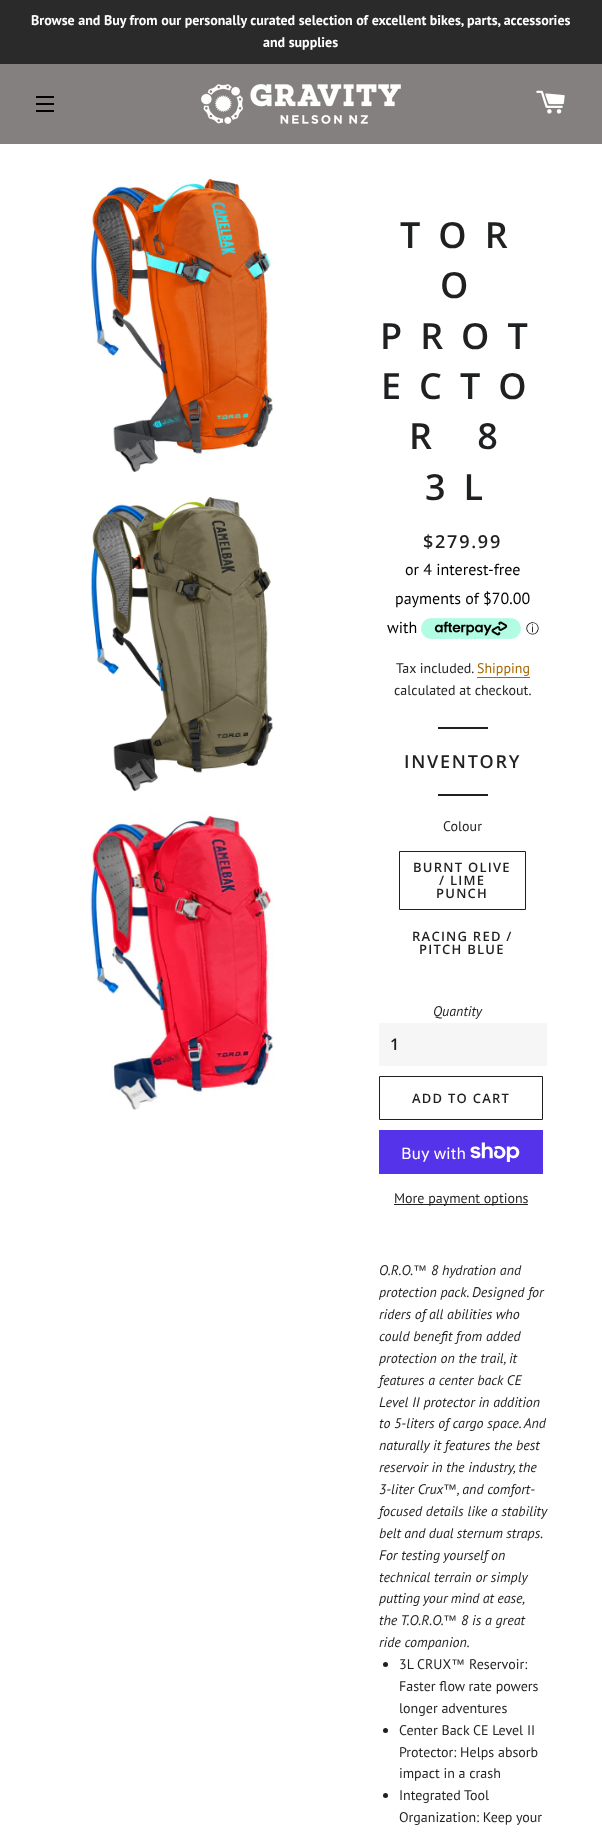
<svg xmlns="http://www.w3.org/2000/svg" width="602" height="1837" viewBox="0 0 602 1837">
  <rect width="100%" height="100%" fill="#fff"/>
  <path d="M0 0h602v64H0z" fill="#2a2a2b"/>
  <path d="M0 64h602v80H0z" fill="#858080"/>
  <path d="M36 96h18v2H36z" fill="#000"/>
  <path d="M36 103h18v2H36z" fill="#000"/>
  <path d="M36 110h18v2H36z" fill="#000"/>
  <image x="201" y="84" width="200" height="40" href="img/1.png"/>
  <image x="536" y="90" width="29" height="24" href="img/2.png"/>
  <image x="30" y="174" width="304" height="303" href="img/3.png"/>
  <image x="30" y="492" width="304" height="304" href="img/4.png"/>
  <image x="30" y="811" width="304" height="304" href="img/5.png"/>
  <image x="421" y="618" width="100" height="21" href="img/6.png"/>
  <path d="M477 677h53v1H477z" fill="#a56600"/>
  <path d="M438 727h50v2H438z" fill="#1f2021"/>
  <path d="M438 794h50v2H438z" fill="#1f2021"/>
  <path d="M399.5 851.5h126v58H399.5z" fill="none" stroke="#1f2021"/>
  <path d="M379 1023h168v43H379z" fill="#f6f6f6"/>
  <path d="M379.5 1076.5h163v43H379.5z" fill="none" stroke="#1f2021"/>
  <path d="M379 1130h164v44H379z" fill="#5433eb"/>
  <image x="470" y="1142" width="50" height="20" href="img/7.png"/>
  <path d="M394 1204h134v1H394z" fill="#1f2021"/>
  <circle cx="385.5" cy="1664.5" r="2.5" fill="#1f2021"/>
  <circle cx="385.5" cy="1730.5" r="2.5" fill="#1f2021"/>
  <circle cx="385.5" cy="1795.5" r="2.5" fill="#1f2021"/>
  <g font-family="PT Sans" font-size="14" font-weight="bold" fill="#fff">
    <text x="31" y="25">Browse and Buy from our personally curated selection of excellent bikes, parts, accessories</text>
    <text x="263" y="47">and supplies</text>
  </g>
  <g font-family="Open Sans" font-size="36" font-weight="600" letter-spacing="18" fill="#1f2021">
    <text x="400" y="248">TOR</text>
    <text x="440" y="298">O</text>
    <text x="380" y="349">PROT</text>
    <text x="381" y="399">ECTO</text>
    <text x="409" y="449">R 8</text>
    <text x="425" y="500">3L</text>
  </g>
  <text x="423" y="548" font-family="Open Sans" font-size="18" font-weight="600" letter-spacing="1.75" fill="#1f2021">$279.99</text>
  <g font-family="PT Sans" font-size="16" fill="#000">
    <text x="405" y="575">or 4 interest-free</text>
    <text x="395" y="604">payments of $70.00</text>
    <text x="387" y="633">with</text>
  </g>
  <text x="526" y="633" font-family="WenQuanYi Zen Hei" font-size="13" font-weight="500" fill="#000">ⓘ</text>
  <text x="396" y="673" font-family="PT Sans" font-size="14" fill="#1f2021">Tax included.</text>
  <text x="477" y="673" font-family="PT Sans" font-size="14" fill="#a56600">Shipping</text>
  <text x="394" y="695" font-family="PT Sans" font-size="14" fill="#1f2021">calculated at checkout.</text>
  <text x="404" y="768" font-family="Open Sans" font-size="18" font-weight="600" letter-spacing="1.75" fill="#1f2021">INVENTORY</text>
  <text x="443" y="831" font-family="PT Sans" font-size="14" fill="#1f2021">Colour</text>
  <g font-family="Open Sans" font-size="13" font-weight="600" letter-spacing="1.25" fill="#1f2021">
    <text x="413" y="872">BURNT OLIVE</text>
    <text x="439" y="885">/ LIME</text>
    <text x="436" y="898">PUNCH</text>
    <text x="412" y="941">RACING RED /</text>
    <text x="419" y="954">PITCH BLUE</text>
  </g>
  <text x="433" y="1016" font-family="PT Sans" font-size="14" font-style="italic" fill="#1f2021">Quantity</text>
  <text x="390" y="1050" font-family="Open Sans" font-size="16" font-weight="600" letter-spacing="2" fill="#1f2021">1</text>
  <text x="412" y="1103" font-family="Open Sans" font-size="13" font-weight="600" letter-spacing="1.25" fill="#1f2021">ADD TO CART</text>
  <text x="401" y="1159" font-family="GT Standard" font-size="16" fill="#fff">Buy with</text>
  <text x="394" y="1203" font-family="PT Sans" font-size="14" fill="#1f2021">More payment options</text>
  <text x="379" y="1275" font-family="PT Sans" font-size="14" font-style="italic" fill="#1f2021">O.R.O.</text>
  <text x="413" y="1275" font-family="Liberation Sans" font-size="14" font-style="italic" fill="#1f2021">™</text>
  <g font-family="PT Sans" font-size="14" font-style="italic" fill="#1f2021">
    <text x="431" y="1275">8 hydration and</text>
    <text x="379" y="1297">protection pack. Designed for</text>
    <text x="379" y="1319">riders of all abilities who</text>
    <text x="379" y="1341">could benefit from added</text>
    <text x="379" y="1363">protection on the trail, it</text>
    <text x="379" y="1385">features a center back CE</text>
    <text x="379" y="1407">Level II protector in addition</text>
    <text x="379" y="1428">to 5-liters of cargo space. And</text>
    <text x="379" y="1450">naturally it features the best</text>
    <text x="379" y="1472">reservoir in the industry, the</text>
    <text x="379" y="1494">3-liter Crux</text>
  </g>
  <text x="443" y="1494" font-family="Liberation Sans" font-size="14" font-style="italic" fill="#1f2021">™</text>
  <g font-family="PT Sans" font-size="14" font-style="italic" fill="#1f2021">
    <text x="457" y="1494">, and comfort-</text>
    <text x="379" y="1516">focused details like a stability</text>
    <text x="379" y="1538" word-spacing="-0.5">belt and dual sternum straps.</text>
    <text x="379" y="1560">For testing yourself on</text>
    <text x="379" y="1582">technical terrain or simply</text>
    <text x="379" y="1603" word-spacing="-0.5">putting your mind at ease,</text>
    <text x="379" y="1625">the T.O.R.O.</text>
  </g>
  <text x="443" y="1625" font-family="Liberation Sans" font-size="14" font-style="italic" fill="#1f2021">™</text>
  <g font-family="PT Sans" font-size="14" font-style="italic" fill="#1f2021">
    <text x="461" y="1625">8 is a great</text>
    <text x="379" y="1647">ride companion.</text>
  </g>
  <text x="399" y="1669" font-family="PT Sans" font-size="14" fill="#1f2021">3L CRUX</text>
  <text x="451" y="1669" font-family="Liberation Sans" font-size="14" fill="#1f2021">™</text>
  <g font-family="PT Sans" font-size="14" fill="#1f2021">
    <text x="469" y="1669">Reservoir:</text>
    <text x="399" y="1691">Faster flow rate powers</text>
    <text x="399" y="1713">longer adventures</text>
    <text x="399" y="1735">Center Back CE Level II</text>
    <text x="399" y="1757">Protector: Helps absorb</text>
    <text x="399" y="1778">impact in a crash</text>
    <text x="399" y="1800">Integrated Tool</text>
    <text x="399" y="1822">Organization: Keep your</text>
  </g>
</svg>
